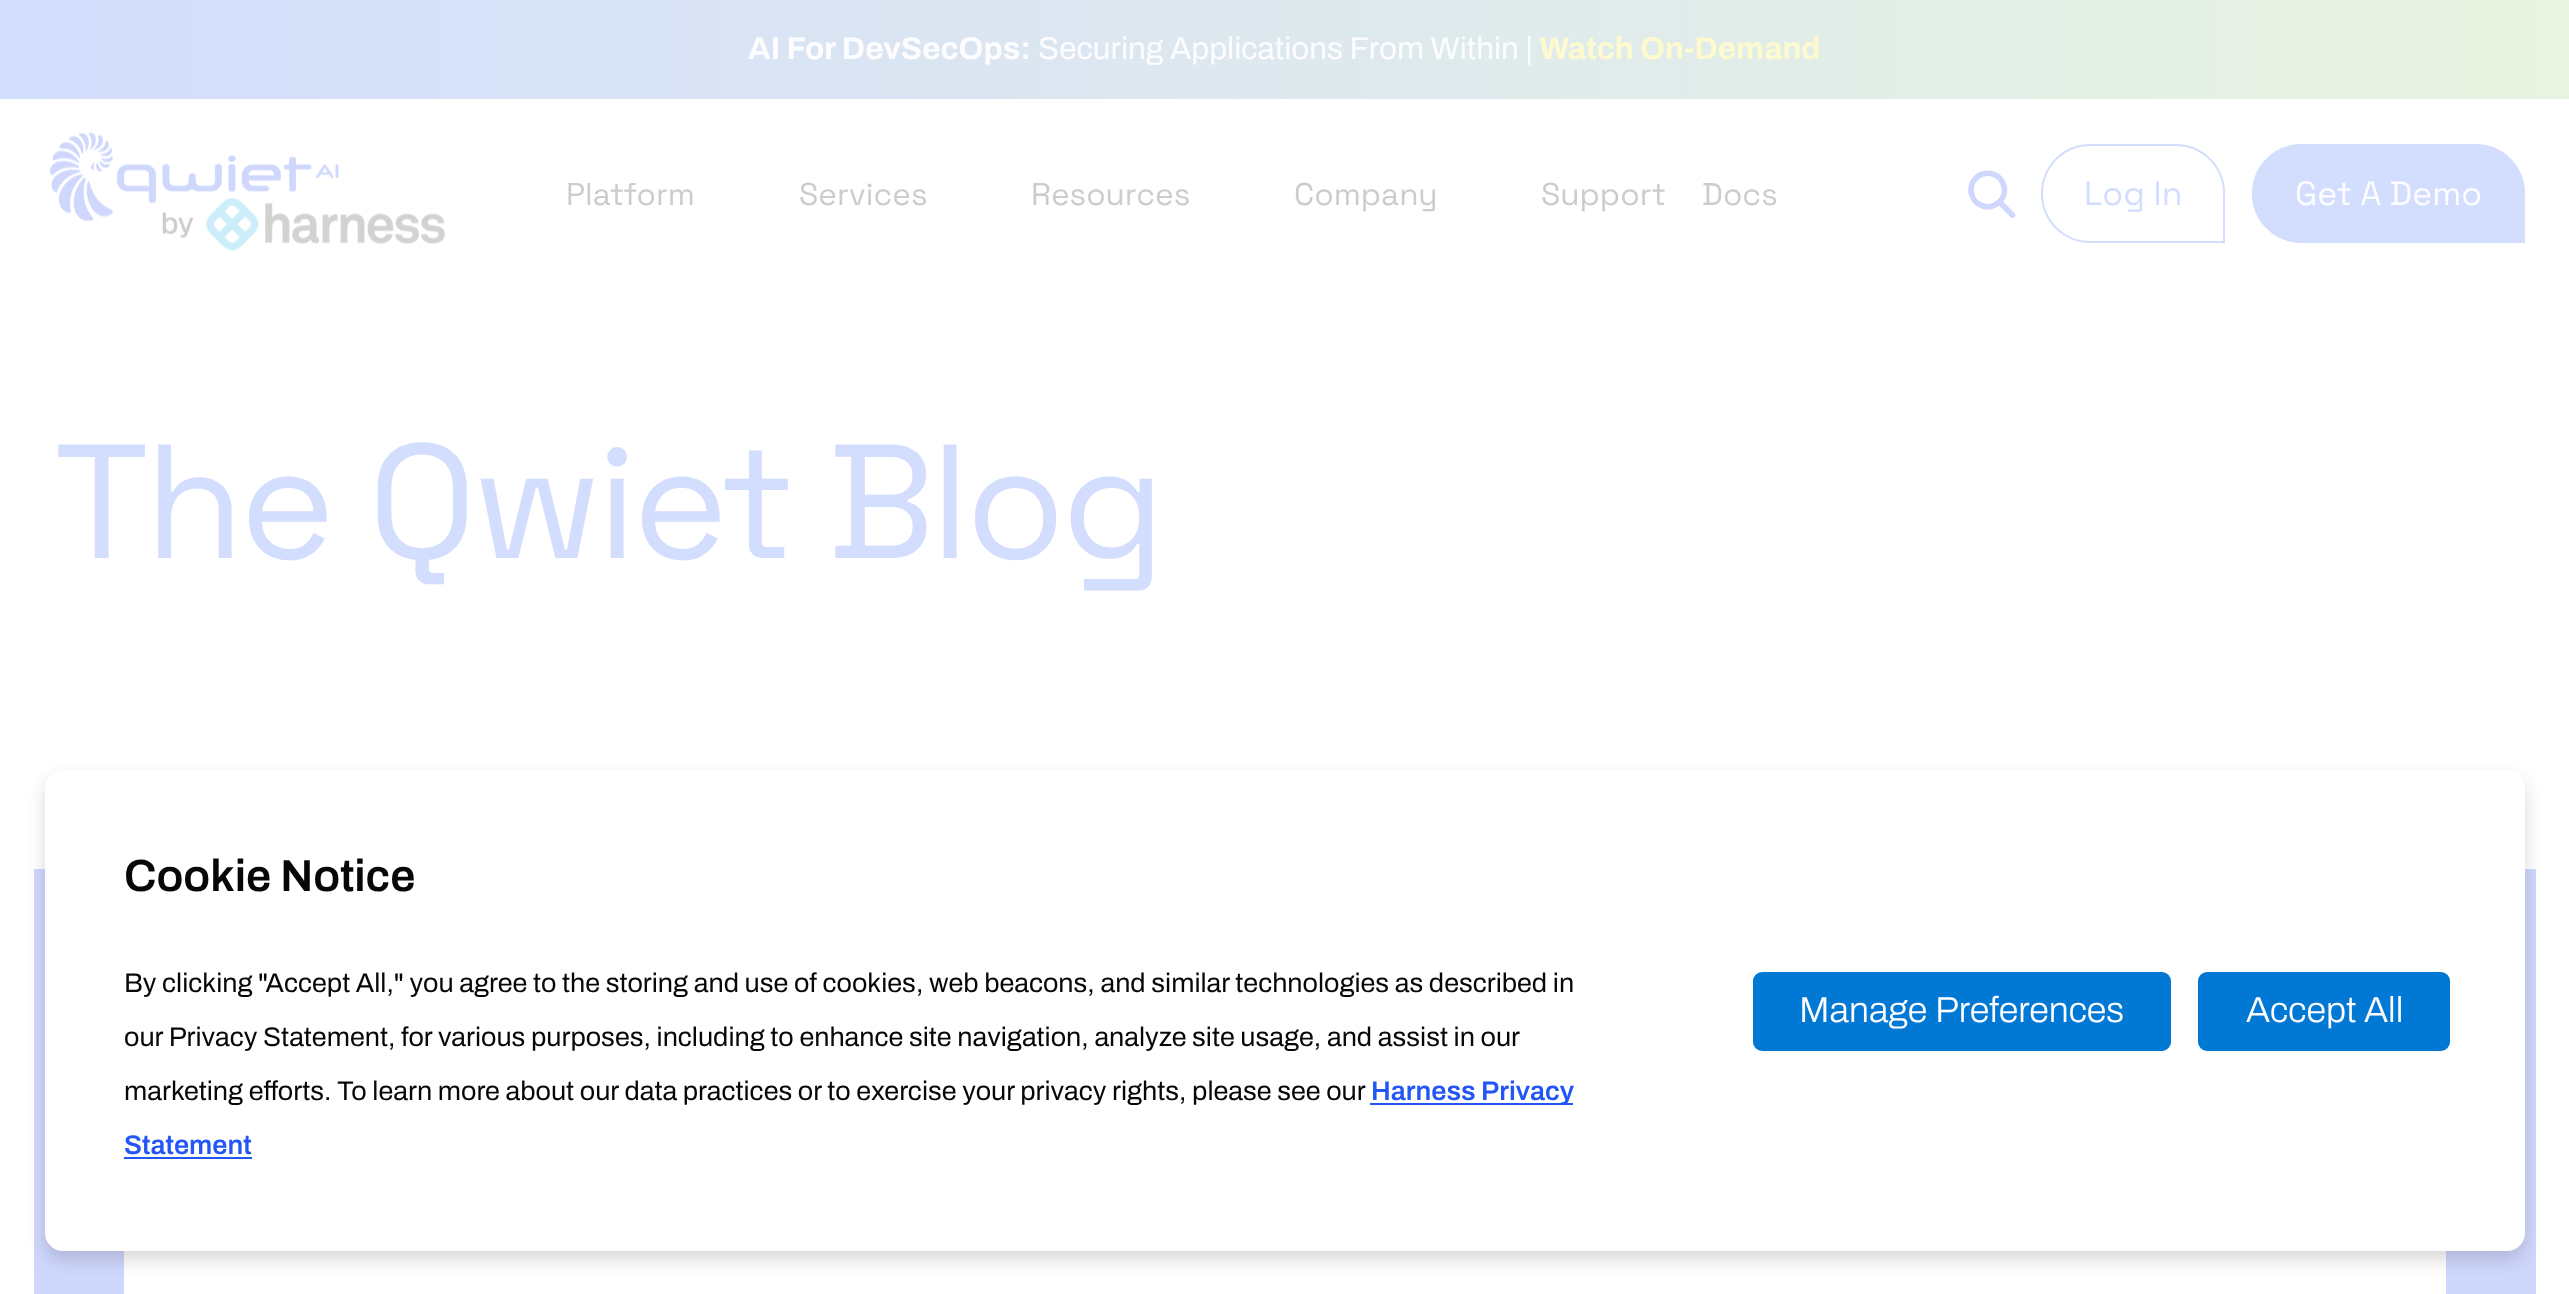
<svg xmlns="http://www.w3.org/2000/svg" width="2569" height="1294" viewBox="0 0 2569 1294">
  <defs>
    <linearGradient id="g1" gradientUnits="userSpaceOnUse" x1="0" y1="50" x2="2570" y2="49"><stop offset="0" stop-color="#d3ddfd"/><stop offset="1" stop-color="#e8f4e0"/></linearGradient>
  </defs>
  <rect width="100%" height="100%" fill="#fff"/>
  <path d="M0 0h2569v99H0z" fill="url(#g1)"/>
  <image x="49" y="132" width="396" height="119" href="img/1.png"/>
  <path d="M1972.5 196.5C1973.5 200 1976 202.5 1979.5 204.5C1993 212.5 2009.5 198 2003 183.5C1997 168.5 1975 170.5 1971.5 186C1970.5 189.5 1971 193.5 1972.5 196.5ZM1999.5 202L2012.5 215" fill="none" stroke="#cfd7fd" stroke-width="5.6" stroke-linecap="round" stroke-linejoin="round"/>
  <path d="M2090.5 145H2175.5C2202.5 145 2224 166.5 2224 193.5V242H2090.5C2063.5 242 2042 220.5 2042 193.5C2042 166.5 2063.5 145 2090.5 145Z" fill="none" stroke="#d3ddfd" stroke-width="2"/>
  <path d="M2301.5 145H2475.5C2502.5 145 2524 166.5 2524 193.5V242H2301.5C2274.5 242 2253 220.5 2253 193.5C2253 166.5 2274.5 145 2301.5 145Z" fill="#d3ddfd" stroke="#d3ddfd" stroke-width="2"/>
  <path d="M34 869h2502v425H34z" fill="#cfd7fd"/>
  <path d="M124 1251h2322v43H124z" fill="#fff"/>
  <rect x="45" y="779" width="2480" height="481" rx="18" fill="#00000026" filter="blur(9px)"/>
  <rect x="48.5" y="773.5" width="2473" height="474" rx="14.5" fill="#fff" stroke="#fff" stroke-width="7"/>
  <path d="M1370 1103h203v2H1370z" fill="#2356f6"/>
  <path d="M124 1157h128v2H124z" fill="#2356f6"/>
  <rect x="1754" y="973" width="416" height="77" rx="8" fill="#0278d5" stroke="#0278d5" stroke-width="2"/>
  <rect x="2199" y="973" width="250" height="77" rx="8" fill="#0278d5" stroke="#0278d5" stroke-width="2"/>
  <text x="748" y="59" font-family="Archivo" font-size="31.5" font-weight="bold" fill="#fdfdff">AI For DevSecOps:</text>
  <text x="1038" y="59" font-family="Archivo" font-size="31.5" fill="#fdfdff">Securing Applications From Within |</text>
  <text x="1539" y="59" font-family="Archivo" font-size="31.5" font-weight="bold" fill="#fdfacf">Watch On-Demand</text>
  <g font-family="Space Grotesk" font-size="31.5" fill="#ccc">
    <text x="566" y="205">Platform</text>
    <text x="799" y="205">Services</text>
    <text x="1031" y="205">Resources</text>
    <text x="1294" y="205">Company</text>
    <text x="1541" y="205">Support</text>
    <text x="1702" y="205">Docs</text>
  </g>
  <text x="2084" y="205" font-family="Space Grotesk" font-size="33.75" fill="#d3ddfd">Log In</text>
  <text x="2295" y="205" font-family="Space Grotesk" font-size="33.75" fill="#fdfdff">Get A Demo</text>
  <text x="54" y="558" font-family="Space Grotesk" font-size="162" letter-spacing="-4.5" fill="#d3ddfd">The Qwiet Blog</text>
  <text x="124" y="891" font-family="Archivo" font-size="45" font-weight="600" fill="#070707">Cookie Notice</text>
  <g font-family="Archivo" font-size="27" fill="#070707">
    <text x="124" y="992">By clicking "Accept All," you agree to the storing and use of cookies, web beacons, and similar technologies as described in</text>
    <text x="124" y="1046">our Privacy Statement, for various purposes, including to enhance site navigation, analyze site usage, and assist in our</text>
    <text x="124" y="1100">marketing efforts. To learn more about our data practices or to exercise your privacy rights, please see our</text>
  </g>
  <g font-family="Archivo" font-size="27" font-weight="600" fill="#2356f6">
    <text x="1371" y="1100">Harness Privacy</text>
    <text x="124" y="1154">Statement</text>
  </g>
  <g font-family="Archivo" font-size="36" font-weight="300" fill="#fdfdff">
    <text x="1799" y="1022">Manage Preferences</text>
    <text x="2246" y="1022">Accept All</text>
  </g>
</svg>
